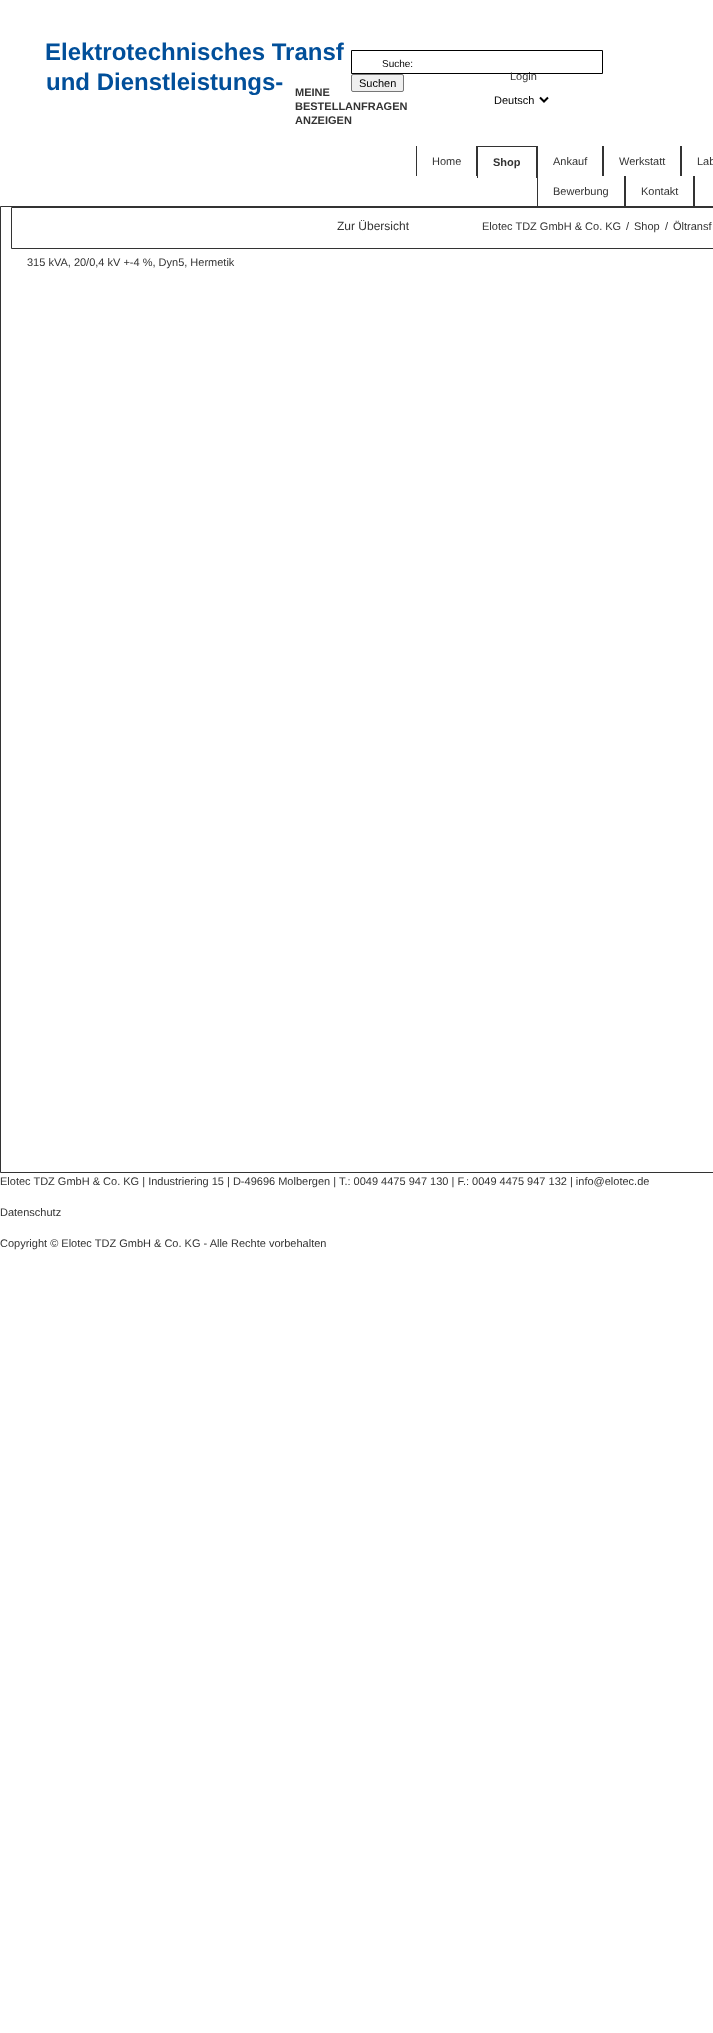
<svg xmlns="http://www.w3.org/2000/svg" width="713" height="2033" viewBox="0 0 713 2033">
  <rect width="100%" height="100%" fill="#fff"/>
  <path d="M351.5 50.5h251v23H351.5z" fill="none" stroke="#000"/>
  <rect x="351.5" y="74.5" width="52" height="17" rx="1.5" fill="#efefef" stroke="#767676"/>
  <path d="M540 97.5L544 101.5L548 97.5" fill="none" stroke="#000" stroke-width="2"/>
  <path d="M476 146h1v30H476z" fill="#333"/>
  <path d="M416 146h1v30H416z" fill="#333"/>
  <path d="M477 146h60v1H477z" fill="#333"/>
  <path d="M536 146h1v32H536z" fill="#333"/>
  <path d="M477 146h1v32H477z" fill="#333"/>
  <path d="M602 146h2v30H602z" fill="#333"/>
  <path d="M537 146h1v60H537z" fill="#333"/>
  <path d="M680 146h2v30H680z" fill="#333"/>
  <path d="M624 176h2v30H624z" fill="#333"/>
  <path d="M693 176h2v30H693z" fill="#333"/>
  <path d="M0.5 206.5h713v966H0.5z" fill="none" stroke="#333"/>
  <path d="M11.5 207.5h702v41H11.5z" fill="none" stroke="#333"/>
  <g font-family="Liberation Sans" font-size="24" font-weight="bold" fill="#014f9a">
    <text x="45" y="60">Elektrotechnisches Transf</text>
    <text x="46" y="90">und Dienstleistungs-</text>
  </g>
  <text x="382" y="67" font-family="Liberation Sans" font-size="10" fill="#000">Suche:</text>
  <text x="359" y="87" font-family="Liberation Sans" font-size="11" fill="#000">Suchen</text>
  <text x="510" y="80" font-family="Liberation Sans" font-size="11" fill="#333">Login</text>
  <text x="494" y="104" font-family="Liberation Sans" font-size="11" fill="#000">Deutsch</text>
  <g font-family="Liberation Sans" font-size="11" font-weight="bold" fill="#333">
    <text x="295" y="96">MEINE</text>
    <text x="295" y="110">BESTELLANFRAGEN</text>
    <text x="295" y="124">ANZEIGEN</text>
  </g>
  <text x="432" y="165" font-family="Liberation Sans" font-size="11" fill="#333">Home</text>
  <text x="493" y="166" font-family="Liberation Sans" font-size="11" font-weight="bold" fill="#333">Shop</text>
  <g font-family="Liberation Sans" font-size="11" fill="#333">
    <text x="553" y="165">Ankauf</text>
    <text x="619" y="165">Werkstatt</text>
    <text x="697" y="165">Lab</text>
    <text x="553" y="195">Bewerbung</text>
    <text x="641" y="195">Kontakt</text>
  </g>
  <text x="337" y="230" font-family="Liberation Sans" font-size="12" fill="#333">Zur Übersicht</text>
  <g font-family="Liberation Sans" font-size="11" fill="#333">
    <text x="482" y="230">Elotec TDZ GmbH &amp; Co. KG</text>
    <text x="626" y="230">/</text>
    <text x="634" y="230">Shop</text>
    <text x="665" y="230">/</text>
    <text x="673" y="230">Öltransf</text>
    <text x="27" y="266">315 kVA, 20/0,4 kV +-4 %, Dyn5, Hermetik</text>
    <text x="0" y="1185">Elotec TDZ GmbH &amp; Co. KG | Industriering 15 | D-49696 Molbergen | T.: 0049 4475 947 130 | F.: 0049 4475 947 132 | info@elotec.de</text>
    <text x="0" y="1216">Datenschutz</text>
    <text x="0" y="1247">Copyright © Elotec TDZ GmbH &amp; Co. KG - Alle Rechte vorbehalten</text>
  </g>
</svg>
